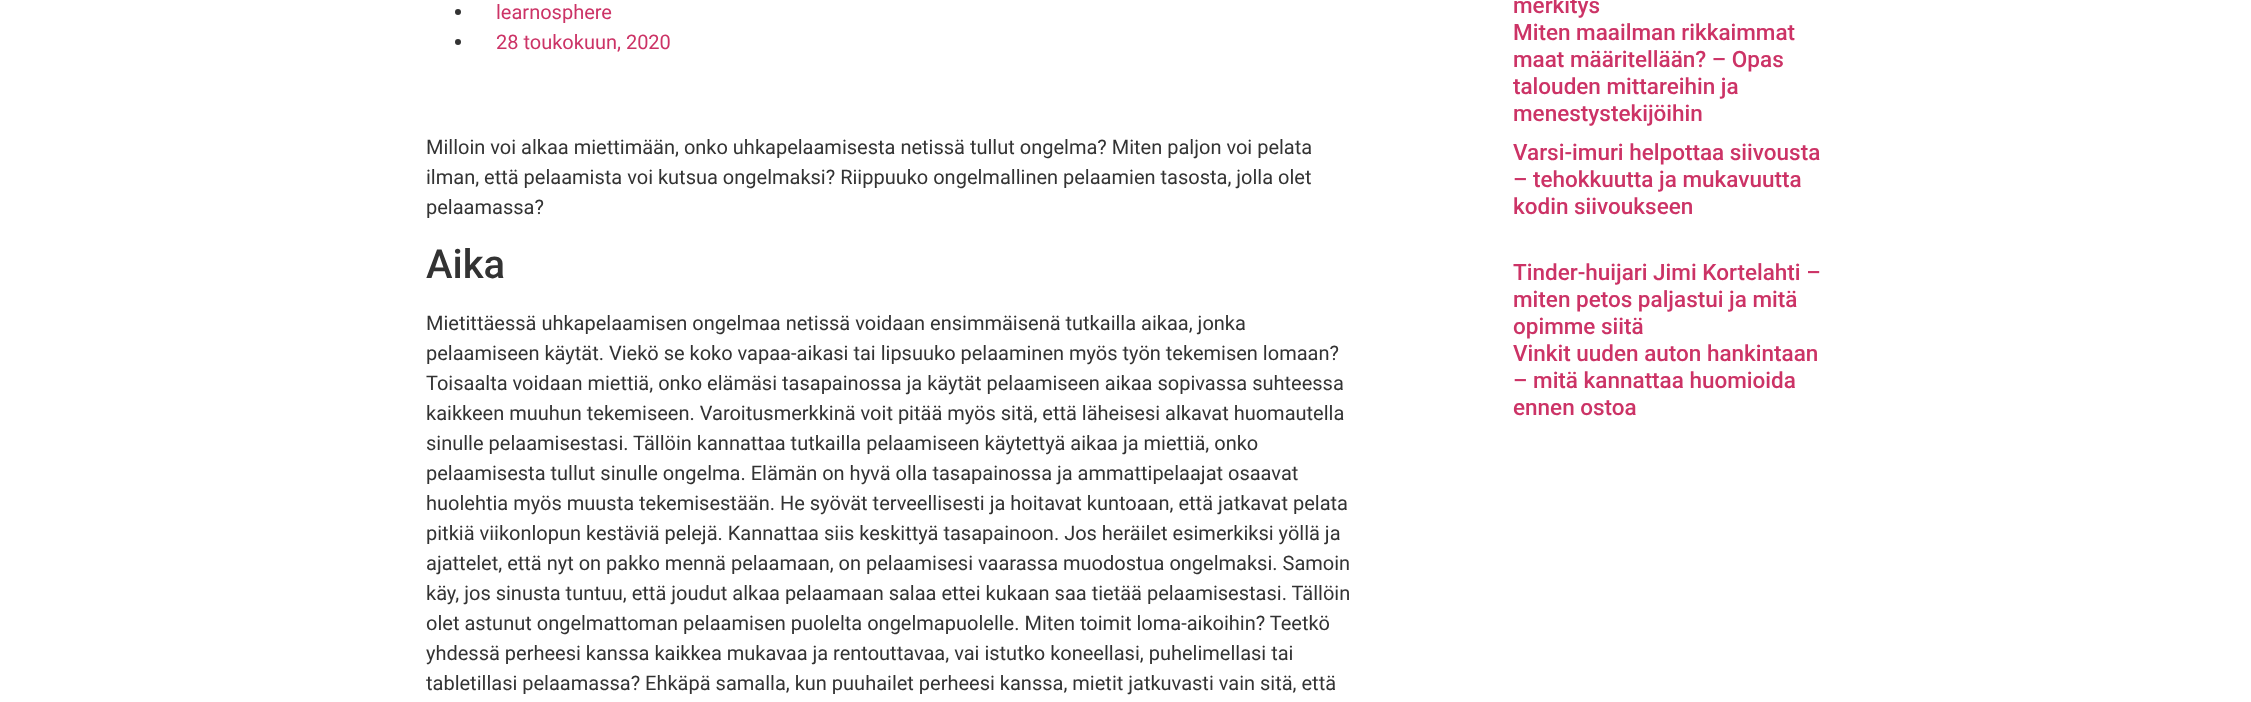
<svg xmlns="http://www.w3.org/2000/svg" width="2251" height="702" viewBox="0 0 2251 702">
  <rect width="100%" height="100%" fill="#fff"/>
  <circle cx="458" cy="12" r="3" fill="#333"/>
  <circle cx="458" cy="42" r="3" fill="#333"/>
  <g font-family="Roboto" font-size="20" fill="#c36">
    <text x="496" y="19">learnosphere</text>
    <text x="496" y="49">28 toukokuun, 2020</text>
  </g>
  <g font-family="Roboto" font-size="20" fill="#333">
    <text x="426" y="154">Milloin voi alkaa miettimään, onko uhkapelaamisesta netissä tullut ongelma? Miten paljon voi pelata</text>
    <text x="426" y="184">ilman, että pelaamista voi kutsua ongelmaksi? Riippuuko ongelmallinen pelaamien tasosta, jolla olet</text>
    <text x="426" y="214">pelaamassa?</text>
  </g>
  <text x="426" y="278" font-family="Roboto" font-size="40" font-weight="500" fill="#333">Aika</text>
  <g font-family="Roboto" font-size="20" fill="#333">
    <text x="426" y="330">Mietittäessä uhkapelaamisen ongelmaa netissä voidaan ensimmäisenä tutkailla aikaa, jonka</text>
    <text x="426" y="360">pelaamiseen käytät. Viekö se koko vapaa-aikasi tai lipsuuko pelaaminen myös työn tekemisen lomaan?</text>
    <text x="426" y="390">Toisaalta voidaan miettiä, onko elämäsi tasapainossa ja käytät pelaamiseen aikaa sopivassa suhteessa</text>
    <text x="426" y="420">kaikkeen muuhun tekemiseen. Varoitusmerkkinä voit pitää myös sitä, että läheisesi alkavat huomautella</text>
    <text x="426" y="450">sinulle pelaamisestasi. Tällöin kannattaa tutkailla pelaamiseen käytettyä aikaa ja miettiä, onko</text>
    <text x="426" y="480">pelaamisesta tullut sinulle ongelma. Elämän on hyvä olla tasapainossa ja ammattipelaajat osaavat</text>
    <text x="426" y="510">huolehtia myös muusta tekemisestään. He syövät terveellisesti ja hoitavat kuntoaan, että jatkavat pelata</text>
    <text x="426" y="540">pitkiä viikonlopun kestäviä pelejä. Kannattaa siis keskittyä tasapainoon. Jos heräilet esimerkiksi yöllä ja</text>
    <text x="426" y="570">ajattelet, että nyt on pakko mennä pelaamaan, on pelaamisesi vaarassa muodostua ongelmaksi. Samoin</text>
    <text x="426" y="600">käy, jos sinusta tuntuu, että joudut alkaa pelaamaan salaa ettei kukaan saa tietää pelaamisestasi. Tällöin</text>
    <text x="426" y="630">olet astunut ongelmattoman pelaamisen puolelta ongelmapuolelle. Miten toimit loma-aikoihin? Teetkö</text>
    <text x="426" y="660">yhdessä perheesi kanssa kaikkea mukavaa ja rentouttavaa, vai istutko koneellasi, puhelimellasi tai</text>
    <text x="426" y="690">tabletillasi pelaamassa? Ehkäpä samalla, kun puuhailet perheesi kanssa, mietit jatkuvasti vain sitä, että</text>
  </g>
  <g font-family="Roboto" font-size="22.5" font-weight="500" fill="#c36">
    <text x="1513" y="13">merkitys</text>
    <text x="1513" y="40">Miten maailman rikkaimmat</text>
    <text x="1513" y="67">maat määritellään? – Opas</text>
    <text x="1513" y="94">talouden mittareihin ja</text>
    <text x="1513" y="121">menestystekijöihin</text>
    <text x="1513" y="160">Varsi-imuri helpottaa siivousta</text>
    <text x="1513" y="187">– tehokkuutta ja mukavuutta</text>
    <text x="1513" y="214">kodin siivoukseen</text>
    <text x="1513" y="280">Tinder-huijari Jimi Kortelahti –</text>
    <text x="1513" y="307">miten petos paljastui ja mitä</text>
    <text x="1513" y="334">opimme siitä</text>
    <text x="1513" y="361">Vinkit uuden auton hankintaan</text>
    <text x="1513" y="388">– mitä kannattaa huomioida</text>
    <text x="1513" y="415">ennen ostoa</text>
  </g>
</svg>
